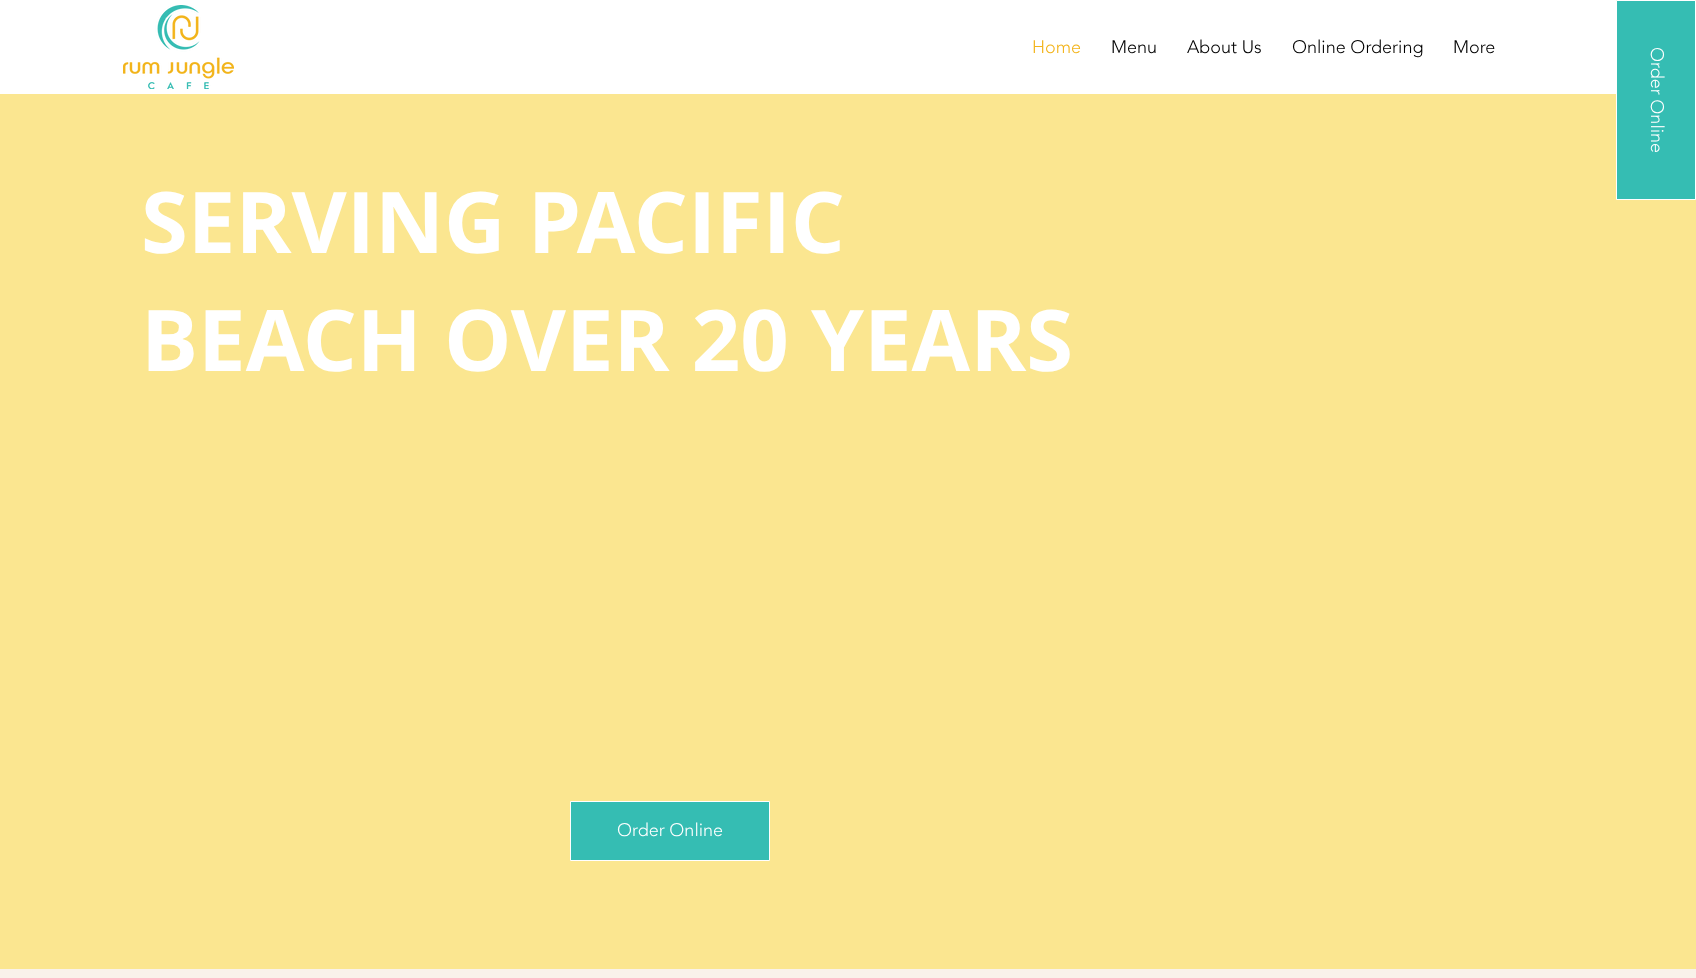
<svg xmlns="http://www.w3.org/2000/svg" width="1696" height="978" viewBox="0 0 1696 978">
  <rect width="100%" height="100%" fill="#fbe690"/>
  <path d="M0 0h1616v94H0z" fill="#fff"/>
  <image x="123" y="5" width="111" height="84" href="img/1.png"/>
  <path d="M1617 1h78v198H1617z" fill="#35bdb3"/>
  <path d="M1695.5 .5V199.5H1616.5V.5Z" fill="none" stroke="#fff"/>
  <path d="M570.5 801.5h199v59H570.5z" fill="#35bdb3" stroke="#fff"/>
  <path d="M0 969h1696v9H0z" fill="#f9f2ea"/>
  <text x="1032" y="53" font-family="'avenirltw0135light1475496'" font-size="18" font-weight="300" fill="#f3b41b">Home</text>
  <g font-family="'avenirltw0135light1475496'" font-size="18" font-weight="300" fill="#000">
    <text x="1111" y="53">Menu</text>
    <text x="1187" y="53">About Us</text>
    <text x="1292" y="53">Online Ordering</text>
    <text x="1453" y="53">More</text>
  </g>
  <text x="1651" y="47" transform="rotate(90 1651 47)" font-family="'avenirltw0135light1475496'" font-size="18" font-weight="300" fill="#fff">Order Online</text>
  <g font-family="Open Sans" font-size="85" font-weight="bold" fill="#fff">
    <text x="141" y="253">SERVING PACIFIC</text>
    <text x="141" y="371">BEACH OVER 20 YEARS</text>
  </g>
  <text x="617" y="836" font-family="'avenirltw0135light1475496'" font-size="18" font-weight="300" fill="#fff">Order Online</text>
</svg>
